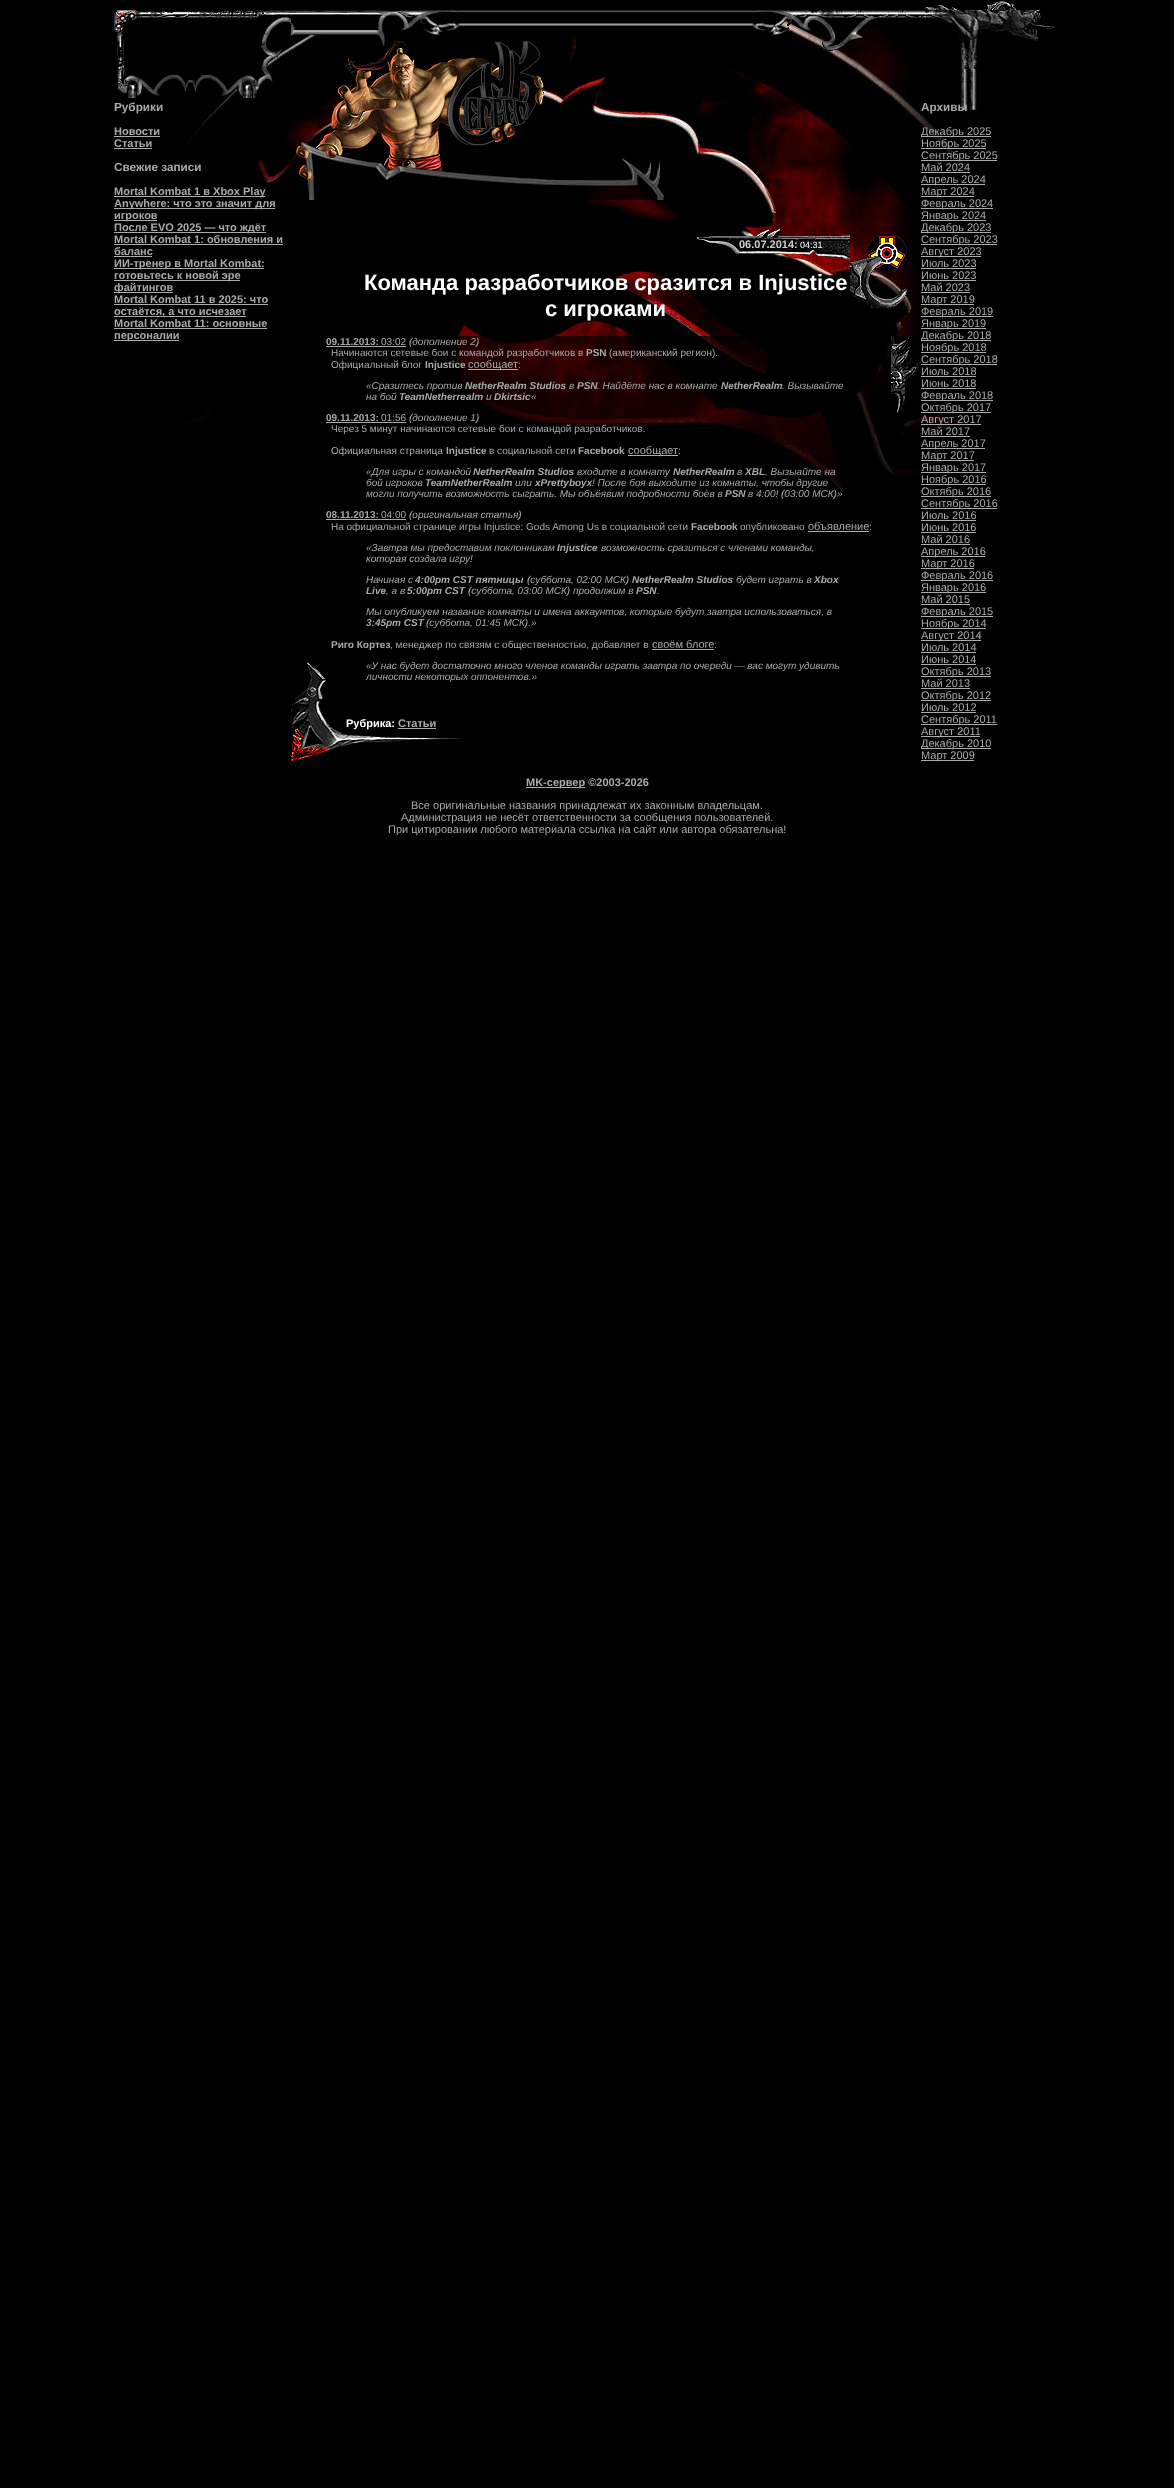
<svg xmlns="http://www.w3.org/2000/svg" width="1174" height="2488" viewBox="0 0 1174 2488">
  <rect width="100%" height="100%" fill="#000"/>
  <image x="185" y="10" width="802" height="486" href="img/1.png"/>
  <image x="925" y="1" width="91" height="9" href="img/2.png"/>
  <image x="114" y="10" width="177" height="88" href="img/3.png"/>
  <path d="M114 136h46v1H114z" fill="#aaa"/>
  <path d="M114 148h38v1H114z" fill="#aaa"/>
  <path d="M114 196h151v1H114z" fill="#aaa"/>
  <path d="M114 208h161v1H114z" fill="#aaa"/>
  <path d="M114 220h43v1H114z" fill="#aaa"/>
  <path d="M114 232h152v1H114z" fill="#aaa"/>
  <path d="M114 244h169v1H114z" fill="#aaa"/>
  <path d="M114 256h38v1H114z" fill="#aaa"/>
  <path d="M114 268h150v1H114z" fill="#aaa"/>
  <path d="M114 280h126v1H114z" fill="#aaa"/>
  <path d="M114 292h59v1H114z" fill="#aaa"/>
  <path d="M114 304h154v1H114z" fill="#aaa"/>
  <path d="M114 316h132v1H114z" fill="#aaa"/>
  <path d="M114 328h153v1H114z" fill="#aaa"/>
  <path d="M114 340h65v1H114z" fill="#aaa"/>
  <image x="291" y="10" width="102" height="37" href="img/4.png"/>
  <image x="393" y="10" width="67" height="25" href="img/5.png"/>
  <image x="460" y="10" width="292" height="16" href="img/6.png"/>
  <image x="752" y="10" width="169" height="41" href="img/7.png"/>
  <path d="M596 179h53v6H596z" fill="#000000b3"/>
  <image x="296" y="41" width="369" height="159" href="img/8.png"/>
  <image x="697" y="229" width="153" height="33" href="img/9.png"/>
  <image x="867" y="233" width="40" height="40" href="img/10.png"/>
  <image x="850" y="256" width="58" height="52" href="img/11.png"/>
  <path d="M449 336h472v160H449z" fill="#000000b3"/>
  <image x="303" y="662" width="23" height="30" href="img/12.png"/>
  <path d="M326 346h80v1H326z" fill="#aaa"/>
  <path d="M468 369h50v1H468z" fill="#aaa"/>
  <path d="M326 422h80v1H326z" fill="#aaa"/>
  <path d="M628 455h50v1H628z" fill="#aaa"/>
  <path d="M326 519h80v1H326z" fill="#aaa"/>
  <path d="M808 531h61v1H808z" fill="#aaa"/>
  <path d="M652 649h62v1H652z" fill="#aaa"/>
  <image x="891" y="336" width="30" height="77" href="img/13.png"/>
  <image x="291" y="692" width="170" height="70" href="img/14.png"/>
  <path d="M398 728h38v1H398z" fill="#aaa"/>
  <image x="921" y="10" width="134" height="100" href="img/15.png"/>
  <path d="M921 136h70v1H921z" fill="#aaa"/>
  <path d="M921 148h65v1H921z" fill="#aaa"/>
  <path d="M921 160h76v1H921z" fill="#aaa"/>
  <path d="M921 172h49v1H921z" fill="#aaa"/>
  <path d="M921 184h64v1H921z" fill="#aaa"/>
  <path d="M921 196h53v1H921z" fill="#aaa"/>
  <path d="M921 208h72v1H921z" fill="#aaa"/>
  <path d="M921 220h65v1H921z" fill="#aaa"/>
  <path d="M921 232h70v1H921z" fill="#aaa"/>
  <path d="M921 244h76v1H921z" fill="#aaa"/>
  <path d="M921 256h60v1H921z" fill="#aaa"/>
  <path d="M921 268h55v1H921z" fill="#aaa"/>
  <path d="M921 280h55v1H921z" fill="#aaa"/>
  <path d="M921 292h49v1H921z" fill="#aaa"/>
  <path d="M921 304h53v1H921z" fill="#aaa"/>
  <path d="M921 316h72v1H921z" fill="#aaa"/>
  <path d="M921 328h65v1H921z" fill="#aaa"/>
  <path d="M921 340h70v1H921z" fill="#aaa"/>
  <path d="M921 352h65v1H921z" fill="#aaa"/>
  <path d="M921 364h76v1H921z" fill="#aaa"/>
  <path d="M921 376h55v1H921z" fill="#aaa"/>
  <path d="M921 388h55v1H921z" fill="#aaa"/>
  <path d="M921 400h72v1H921z" fill="#aaa"/>
  <path d="M921 412h70v1H921z" fill="#aaa"/>
  <path d="M921 424h60v1H921z" fill="#aaa"/>
  <path d="M921 436h49v1H921z" fill="#aaa"/>
  <path d="M921 448h64v1H921z" fill="#aaa"/>
  <path d="M921 460h53v1H921z" fill="#aaa"/>
  <path d="M921 472h65v1H921z" fill="#aaa"/>
  <path d="M921 484h65v1H921z" fill="#aaa"/>
  <path d="M921 496h70v1H921z" fill="#aaa"/>
  <path d="M921 508h76v1H921z" fill="#aaa"/>
  <path d="M921 520h55v1H921z" fill="#aaa"/>
  <path d="M921 532h55v1H921z" fill="#aaa"/>
  <path d="M921 544h49v1H921z" fill="#aaa"/>
  <path d="M921 556h64v1H921z" fill="#aaa"/>
  <path d="M921 568h53v1H921z" fill="#aaa"/>
  <path d="M921 580h72v1H921z" fill="#aaa"/>
  <path d="M921 592h65v1H921z" fill="#aaa"/>
  <path d="M921 604h49v1H921z" fill="#aaa"/>
  <path d="M921 616h72v1H921z" fill="#aaa"/>
  <path d="M921 628h65v1H921z" fill="#aaa"/>
  <path d="M921 640h60v1H921z" fill="#aaa"/>
  <path d="M921 652h55v1H921z" fill="#aaa"/>
  <path d="M921 664h55v1H921z" fill="#aaa"/>
  <path d="M921 676h70v1H921z" fill="#aaa"/>
  <path d="M921 688h49v1H921z" fill="#aaa"/>
  <path d="M921 700h70v1H921z" fill="#aaa"/>
  <path d="M921 712h55v1H921z" fill="#aaa"/>
  <path d="M921 724h76v1H921z" fill="#aaa"/>
  <path d="M921 736h59v1H921z" fill="#aaa"/>
  <path d="M921 748h70v1H921z" fill="#aaa"/>
  <path d="M921 760h53v1H921z" fill="#aaa"/>
  <path d="M526 787h59v1H526z" fill="#aaa"/>
  <text x="114" y="111" font-family="Liberation Sans" font-size="11.75" font-weight="bold" fill="#aaa">Рубрики</text>
  <g font-family="Liberation Sans" font-size="11" font-weight="bold" fill="#aaa">
    <text x="114" y="135">Новости</text>
    <text x="114" y="147">Статьи</text>
  </g>
  <text x="114" y="171" font-family="Liberation Sans" font-size="11.75" font-weight="bold" fill="#aaa">Свежие записи</text>
  <g font-family="Liberation Sans" font-size="11" font-weight="bold" fill="#aaa">
    <text x="114" y="195">Mortal Kombat 1 в Xbox Play</text>
    <text x="114" y="207">Anywhere: что это значит для</text>
    <text x="114" y="219">игроков</text>
    <text x="114" y="231">После EVO 2025 — что ждёт</text>
    <text x="114" y="243">Mortal Kombat 1: обновления и</text>
    <text x="114" y="255">баланс</text>
    <text x="114" y="267">ИИ-тренер в Mortal Kombat:</text>
    <text x="114" y="279">готовьтесь к новой эре</text>
    <text x="114" y="291">файтингов</text>
    <text x="114" y="303">Mortal Kombat 11 в 2025: что</text>
    <text x="114" y="315">остаётся, а что исчезает</text>
    <text x="114" y="327">Mortal Kombat 11: основные</text>
    <text x="114" y="339">персоналии</text>
  </g>
  <text x="739" y="248" font-family="Liberation Sans" font-size="11" font-weight="bold" fill="#ccc">06.07.2014:</text>
  <text x="800" y="248" font-family="Liberation Sans" font-size="9" fill="#fff">04:31</text>
  <g font-family="Liberation Sans" font-size="22" font-weight="bold" fill="#fff">
    <text x="364" y="290">Команда разработчиков сразится в Injustice</text>
    <text x="545" y="316">с игроками</text>
  </g>
  <text x="326" y="345" font-family="Liberation Sans" font-size="10" font-weight="bold" fill="#aaa">09.11.2013:</text>
  <text x="381" y="345" font-family="Liberation Sans" font-size="10" fill="#aaa">03:02</text>
  <text x="409" y="345" font-family="Liberation Sans" font-size="10" font-style="italic" fill="#aaa">(дополнение 2)</text>
  <text x="331" y="356" font-family="Liberation Sans" font-size="10" fill="#aaa">Начинаются сетевые бои с командой разработчиков в</text>
  <text x="586" y="356" font-family="Liberation Sans" font-size="10" font-weight="bold" fill="#aaa">PSN</text>
  <g font-family="Liberation Sans" font-size="10" fill="#aaa">
    <text x="609" y="356">(американский регион).</text>
    <text x="331" y="368">Официальный блог</text>
  </g>
  <text x="425" y="368" font-family="Liberation Sans" font-size="10" font-weight="bold" fill="#aaa">Injustice</text>
  <text x="468" y="368" font-family="Liberation Sans" font-size="11" fill="#aaa">сообщает</text>
  <text x="518" y="368" font-family="Liberation Sans" font-size="10" fill="#aaa">:</text>
  <text x="366" y="389" font-family="Liberation Sans" font-size="10" font-style="italic" fill="#aaa">«Сразитесь против</text>
  <text x="465" y="389" font-family="Liberation Sans" font-size="10" font-weight="bold" font-style="italic" fill="#aaa">NetherRealm Studios</text>
  <text x="569" y="389" font-family="Liberation Sans" font-size="10" font-style="italic" fill="#aaa">в</text>
  <text x="577" y="389" font-family="Liberation Sans" font-size="10" font-weight="bold" font-style="italic" fill="#aaa">PSN</text>
  <text x="597" y="389" font-family="Liberation Sans" font-size="10" font-style="italic" fill="#aaa">. Найдёте нас в комнате</text>
  <text x="721" y="389" font-family="Liberation Sans" font-size="10" font-weight="bold" font-style="italic" fill="#aaa">NetherRealm</text>
  <g font-family="Liberation Sans" font-size="10" font-style="italic" fill="#aaa">
    <text x="782" y="389">. Вызывайте</text>
    <text x="366" y="400">на бой</text>
  </g>
  <text x="399" y="400" font-family="Liberation Sans" font-size="10" font-weight="bold" font-style="italic" fill="#aaa">TeamNetherrealm</text>
  <text x="486" y="400" font-family="Liberation Sans" font-size="10" font-style="italic" fill="#aaa">и</text>
  <text x="494" y="400" font-family="Liberation Sans" font-size="10" font-weight="bold" font-style="italic" fill="#aaa">Dkirtsic</text>
  <text x="531" y="400" font-family="Liberation Sans" font-size="10" font-style="italic" fill="#aaa">«</text>
  <text x="326" y="421" font-family="Liberation Sans" font-size="10" font-weight="bold" fill="#aaa">09.11.2013:</text>
  <text x="381" y="421" font-family="Liberation Sans" font-size="10" fill="#aaa">01:56</text>
  <text x="409" y="421" font-family="Liberation Sans" font-size="10" font-style="italic" fill="#aaa">(дополнение 1)</text>
  <g font-family="Liberation Sans" font-size="10" fill="#aaa">
    <text x="331" y="432">Через 5 минут начинаются сетевые бои с командой разработчиков.</text>
    <text x="331" y="454">Официальная страница</text>
  </g>
  <text x="446" y="454" font-family="Liberation Sans" font-size="10" font-weight="bold" fill="#aaa">Injustice</text>
  <text x="489" y="454" font-family="Liberation Sans" font-size="10" fill="#aaa">в социальной сети</text>
  <text x="578" y="454" font-family="Liberation Sans" font-size="10" font-weight="bold" fill="#aaa">Facebook</text>
  <text x="628" y="454" font-family="Liberation Sans" font-size="11" fill="#aaa">сообщает</text>
  <text x="678" y="454" font-family="Liberation Sans" font-size="10" fill="#aaa">:</text>
  <text x="366" y="475" font-family="Liberation Sans" font-size="10" font-style="italic" fill="#aaa">«Для игры с командой</text>
  <text x="473" y="475" font-family="Liberation Sans" font-size="10" font-weight="bold" font-style="italic" fill="#aaa">NetherRealm Studios</text>
  <text x="577" y="475" font-family="Liberation Sans" font-size="10" font-style="italic" fill="#aaa">входите в комнату</text>
  <text x="673" y="475" font-family="Liberation Sans" font-size="10" font-weight="bold" font-style="italic" fill="#aaa">NetherRealm</text>
  <text x="737" y="475" font-family="Liberation Sans" font-size="10" font-style="italic" fill="#aaa">в</text>
  <text x="745" y="475" font-family="Liberation Sans" font-size="10" font-weight="bold" font-style="italic" fill="#aaa">XBL</text>
  <g font-family="Liberation Sans" font-size="10" font-style="italic" fill="#aaa">
    <text x="765" y="475">. Вызыайте на</text>
    <text x="366" y="486">бой игроков</text>
  </g>
  <text x="425" y="486" font-family="Liberation Sans" font-size="10" font-weight="bold" font-style="italic" fill="#aaa">TeamNetherRealm</text>
  <text x="515" y="486" font-family="Liberation Sans" font-size="10" font-style="italic" fill="#aaa">или</text>
  <text x="535" y="486" font-family="Liberation Sans" font-size="10" font-weight="bold" font-style="italic" fill="#aaa">xPrettyboyx</text>
  <g font-family="Liberation Sans" font-size="10" font-style="italic" fill="#aaa">
    <text x="592" y="486">! После боя выходите из комнаты, чтобы другие</text>
    <text x="366" y="497">могли получить возможность сыграть. Мы объёявим подробности боёв в</text>
  </g>
  <text x="725" y="497" font-family="Liberation Sans" font-size="10" font-weight="bold" font-style="italic" fill="#aaa">PSN</text>
  <text x="748" y="497" font-family="Liberation Sans" font-size="10" font-style="italic" fill="#aaa">в 4:00! (03:00 МСК)»</text>
  <text x="326" y="518" font-family="Liberation Sans" font-size="10" font-weight="bold" fill="#aaa">08.11.2013:</text>
  <text x="381" y="518" font-family="Liberation Sans" font-size="10" fill="#aaa">04:00</text>
  <text x="409" y="518" font-family="Liberation Sans" font-size="10" font-style="italic" fill="#aaa">(оригинальная статья)</text>
  <text x="331" y="530" font-family="Liberation Sans" font-size="10" fill="#aaa">На официальной странице игры Injustice: Gods Among Us в социальной сети</text>
  <text x="691" y="530" font-family="Liberation Sans" font-size="10" font-weight="bold" fill="#aaa">Facebook</text>
  <text x="740" y="530" font-family="Liberation Sans" font-size="10" fill="#aaa">опубликовано</text>
  <text x="808" y="530" font-family="Liberation Sans" font-size="11" fill="#aaa">объявление</text>
  <text x="869" y="530" font-family="Liberation Sans" font-size="10" fill="#aaa">:</text>
  <text x="366" y="551" font-family="Liberation Sans" font-size="10" font-style="italic" fill="#aaa">«Завтра мы предоставим поклонникам</text>
  <text x="557" y="551" font-family="Liberation Sans" font-size="10" font-weight="bold" font-style="italic" fill="#aaa">Injustice</text>
  <g font-family="Liberation Sans" font-size="10" font-style="italic" fill="#aaa">
    <text x="601" y="551">возможность сразиться с членами команды,</text>
    <text x="366" y="562">которая создала игру!</text>
    <text x="366" y="583">Начиная с</text>
  </g>
  <text x="415" y="583" font-family="Liberation Sans" font-size="10" font-weight="bold" font-style="italic" fill="#aaa">4:00pm CST пятницы</text>
  <text x="527" y="583" font-family="Liberation Sans" font-size="10" font-style="italic" fill="#aaa">(суббота, 02:00 МСК)</text>
  <text x="632" y="583" font-family="Liberation Sans" font-size="10" font-weight="bold" font-style="italic" fill="#aaa">NetherRealm Studios</text>
  <text x="736" y="583" font-family="Liberation Sans" font-size="10" font-style="italic" fill="#aaa">будет играть в</text>
  <g font-family="Liberation Sans" font-size="10" font-weight="bold" font-style="italic" fill="#aaa">
    <text x="814" y="583">Xbox</text>
    <text x="366" y="594">Live</text>
  </g>
  <text x="386" y="594" font-family="Liberation Sans" font-size="10" font-style="italic" fill="#aaa">, а в</text>
  <text x="407" y="594" font-family="Liberation Sans" font-size="10" font-weight="bold" font-style="italic" fill="#aaa">5:00pm CST</text>
  <text x="468" y="594" font-family="Liberation Sans" font-size="10" font-style="italic" fill="#aaa">(суббота, 03:00 МСК) продолжим в</text>
  <text x="636" y="594" font-family="Liberation Sans" font-size="10" font-weight="bold" font-style="italic" fill="#aaa">PSN</text>
  <g font-family="Liberation Sans" font-size="10" font-style="italic" fill="#aaa">
    <text x="657" y="594">.</text>
    <text x="366" y="615">Мы опубликуем название комнаты и имена аккаунтов, которые будут завтра использоваться, в</text>
  </g>
  <text x="366" y="626" font-family="Liberation Sans" font-size="10" font-weight="bold" font-style="italic" fill="#aaa">3:45pm CST</text>
  <text x="426" y="626" font-family="Liberation Sans" font-size="10" font-style="italic" fill="#aaa">(суббота, 01:45 МСК).»</text>
  <text x="331" y="648" font-family="Liberation Sans" font-size="10" font-weight="bold" fill="#aaa">Риго Кортез</text>
  <text x="390" y="648" font-family="Liberation Sans" font-size="10" fill="#aaa">, менеджер по связям с общественностью, добавляет в</text>
  <text x="652" y="648" font-family="Liberation Sans" font-size="11" fill="#aaa">своём блоге</text>
  <text x="714" y="648" font-family="Liberation Sans" font-size="10" fill="#aaa">:</text>
  <g font-family="Liberation Sans" font-size="10" font-style="italic" fill="#aaa">
    <text x="366" y="669">«У нас будет достаточно много членов команды играть завтра по очереди — вас могут удивить</text>
    <text x="366" y="680">личности некоторых оппонентов.»</text>
  </g>
  <text x="346" y="727" font-family="Liberation Sans" font-size="11" font-weight="bold" fill="#fff">Рубрика:</text>
  <text x="398" y="727" font-family="Liberation Sans" font-size="11" font-weight="bold" fill="#aaa">Статьи</text>
  <text x="921" y="111" font-family="Liberation Sans" font-size="11.75" font-weight="bold" fill="#aaa">Архивы</text>
  <g font-family="Liberation Sans" font-size="11" fill="#aaa">
    <text x="921" y="135">Декабрь 2025</text>
    <text x="921" y="147">Ноябрь 2025</text>
    <text x="921" y="159">Сентябрь 2025</text>
    <text x="921" y="171">Май 2024</text>
    <text x="921" y="183">Апрель 2024</text>
    <text x="921" y="195">Март 2024</text>
    <text x="921" y="207">Февраль 2024</text>
    <text x="921" y="219">Январь 2024</text>
    <text x="921" y="231">Декабрь 2023</text>
    <text x="921" y="243">Сентябрь 2023</text>
    <text x="921" y="255">Август 2023</text>
    <text x="921" y="267">Июль 2023</text>
    <text x="921" y="279">Июнь 2023</text>
    <text x="921" y="291">Май 2023</text>
    <text x="921" y="303">Март 2019</text>
    <text x="921" y="315">Февраль 2019</text>
    <text x="921" y="327">Январь 2019</text>
    <text x="921" y="339">Декабрь 2018</text>
    <text x="921" y="351">Ноябрь 2018</text>
    <text x="921" y="363">Сентябрь 2018</text>
    <text x="921" y="375">Июль 2018</text>
    <text x="921" y="387">Июнь 2018</text>
    <text x="921" y="399">Февраль 2018</text>
    <text x="921" y="411">Октябрь 2017</text>
    <text x="921" y="423">Август 2017</text>
    <text x="921" y="435">Май 2017</text>
    <text x="921" y="447">Апрель 2017</text>
    <text x="921" y="459">Март 2017</text>
    <text x="921" y="471">Январь 2017</text>
    <text x="921" y="483">Ноябрь 2016</text>
    <text x="921" y="495">Октябрь 2016</text>
    <text x="921" y="507">Сентябрь 2016</text>
    <text x="921" y="519">Июль 2016</text>
    <text x="921" y="531">Июнь 2016</text>
    <text x="921" y="543">Май 2016</text>
    <text x="921" y="555">Апрель 2016</text>
    <text x="921" y="567">Март 2016</text>
    <text x="921" y="579">Февраль 2016</text>
    <text x="921" y="591">Январь 2016</text>
    <text x="921" y="603">Май 2015</text>
    <text x="921" y="615">Февраль 2015</text>
    <text x="921" y="627">Ноябрь 2014</text>
    <text x="921" y="639">Август 2014</text>
    <text x="921" y="651">Июль 2014</text>
    <text x="921" y="663">Июнь 2014</text>
    <text x="921" y="675">Октябрь 2013</text>
    <text x="921" y="687">Май 2013</text>
    <text x="921" y="699">Октябрь 2012</text>
    <text x="921" y="711">Июль 2012</text>
    <text x="921" y="723">Сентябрь 2011</text>
    <text x="921" y="735">Август 2011</text>
    <text x="921" y="747">Декабрь 2010</text>
    <text x="921" y="759">Март 2009</text>
  </g>
  <text x="526" y="786" font-family="Liberation Sans" font-size="11" font-weight="bold" fill="#aaa">MK-сервер ©2003-2026</text>
  <g font-family="Liberation Sans" font-size="11" fill="#aaa">
    <text x="411" y="809">Все оригинальные названия принадлежат их законным владельцам.</text>
    <text x="401" y="821">Администрация не несёт ответственности за сообщения пользователей.</text>
    <text x="388" y="833">При цитировании любого материала ссылка на сайт или автора обязательна!</text>
  </g>
</svg>
